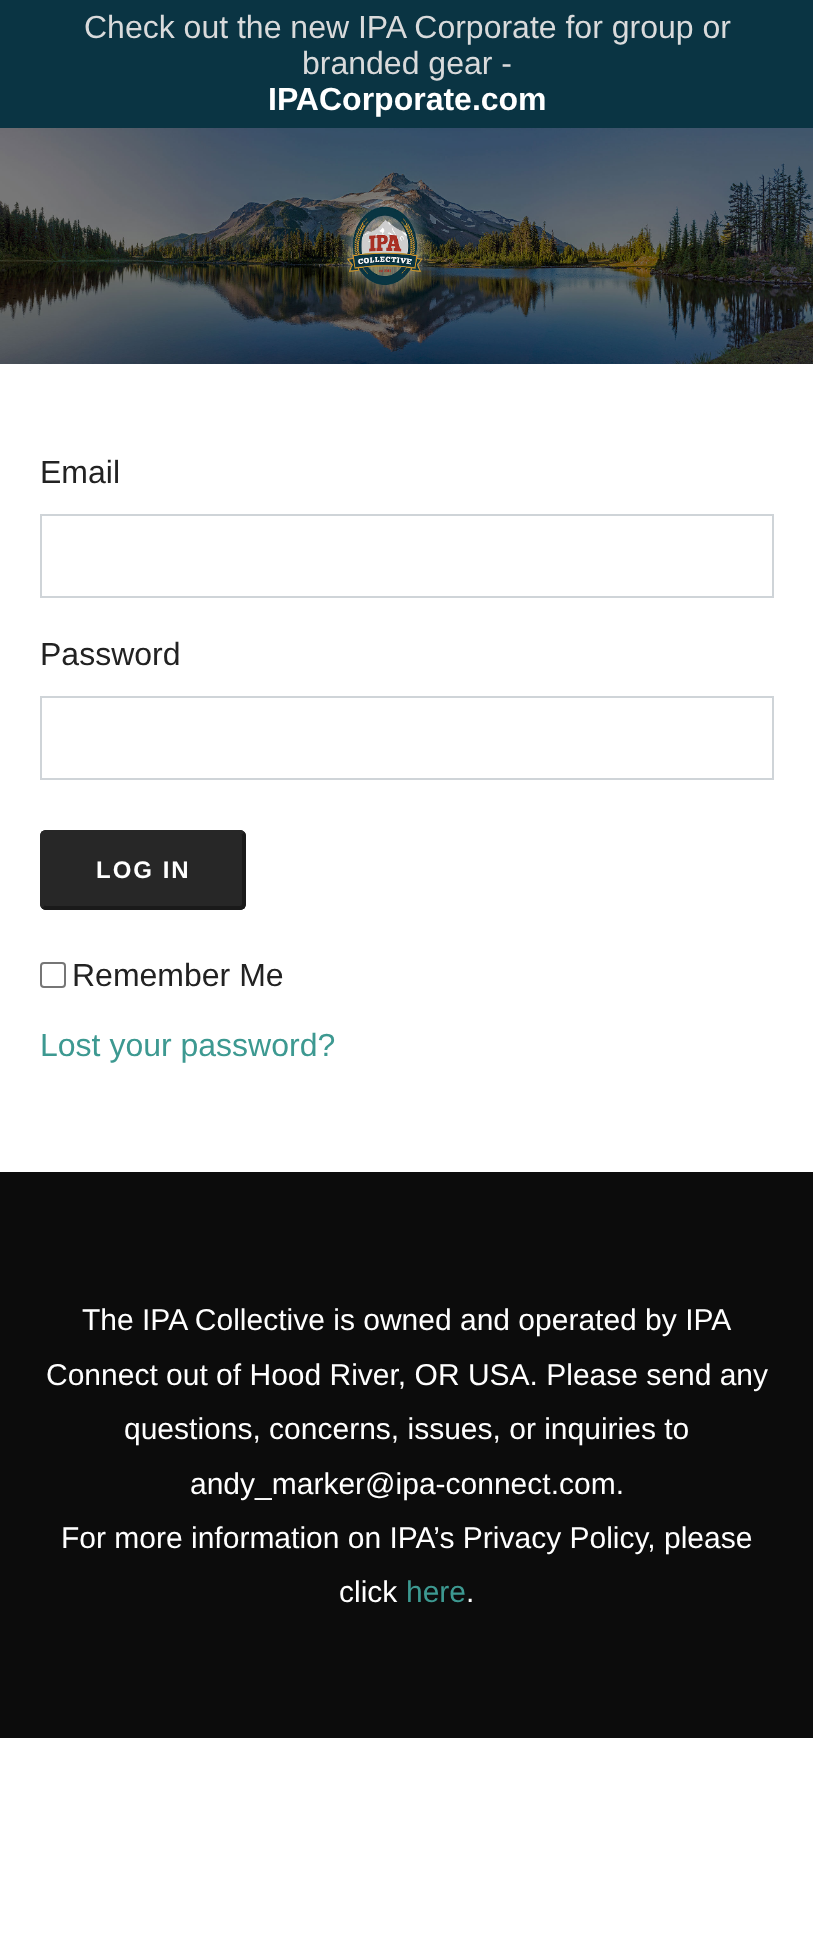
<svg xmlns="http://www.w3.org/2000/svg" width="813" height="1936" viewBox="0 0 813 1936">
  <rect width="100%" height="100%" fill="#fff"/>
  <path d="M0 0h813v128H0z" fill="#0a3443"/>
  <image x="0" y="128" width="813" height="236" href="img/1.png"/>
  <path d="M41 515h732v82H41z" fill="none" stroke="#cfd4d8" stroke-width="2"/>
  <path d="M41 697h732v82H41z" fill="none" stroke="#cfd4d8" stroke-width="2"/>
  <rect x="40" y="830" width="206" height="80" rx="6" fill="#272727"/>
  <path d="M243 833C243.5 834 244 835 244 836V904C244 905 243.5 906 243 907C242 907.5 241 908 240 908H46C45 908 44 907.5 43 907" fill="none" stroke="#1a1a1a" stroke-width="4"/>
  <path d="M43 907C42.5 906 42 905 42 904V836C42 835 42.5 834 43 833C44 832.5 45 832 46 832H240C241 832 242 832.5 243 833" fill="none" stroke="#272727" stroke-width="4"/>
  <rect x="41" y="963" width="24" height="24" rx="3" fill="none" stroke="#767676" stroke-width="2"/>
  <path d="M0 1172h813v566H0z" fill="#0c0c0c"/>
  <g font-family="Liberation Sans" font-size="32" fill="#d9dadb">
    <text x="84" y="38">Check out the new IPA Corporate for group or</text>
    <text x="302" y="74">branded gear -</text>
  </g>
  <text x="268" y="110" font-family="Liberation Sans" font-size="32" font-weight="bold" fill="#fff">IPACorporate.com</text>
  <g font-family="Liberation Sans" font-size="32" fill="#222">
    <text x="40" y="483">Email</text>
    <text x="40" y="665">Password</text>
  </g>
  <text x="96" y="878" font-family="Liberation Sans" font-size="24" font-weight="bold" letter-spacing="2" fill="#fff">LOG IN</text>
  <text x="72" y="986" font-family="Liberation Sans" font-size="32" fill="#222">Remember Me</text>
  <text x="40" y="1056" font-family="Liberation Sans" font-size="32" fill="#3d9991">Lost your password?</text>
  <g font-family="Liberation Sans" font-size="30" fill="#fff">
    <text x="82" y="1330">The IPA Collective is owned and operated by IPA</text>
    <text x="46" y="1385">Connect out of Hood River, OR USA. Please send any</text>
    <text x="124" y="1439">questions, concerns, issues, or inquiries to</text>
    <text x="190" y="1494">andy_marker@ipa-connect.com.</text>
    <text x="61" y="1548">For more information on IPA’s Privacy Policy, please</text>
    <text x="339" y="1602">click</text>
  </g>
  <text x="406" y="1602" font-family="Liberation Sans" font-size="30" fill="#3d9991">here</text>
  <text x="466" y="1602" font-family="Liberation Sans" font-size="30" fill="#fff">.</text>
</svg>
